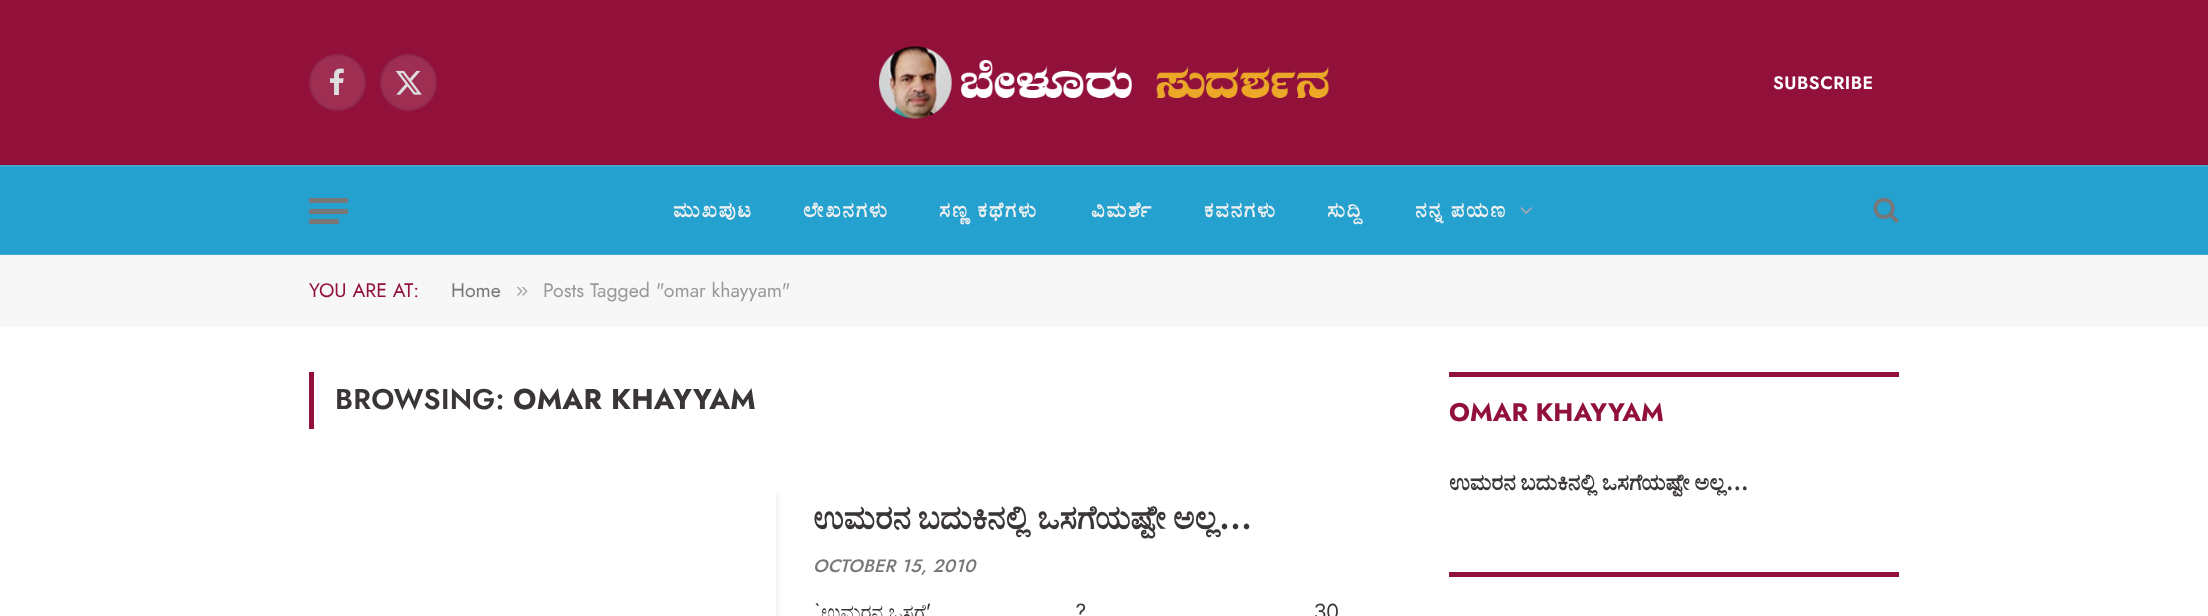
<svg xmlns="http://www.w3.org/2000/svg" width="2208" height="616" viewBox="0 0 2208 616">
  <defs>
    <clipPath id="clip1"><path d="M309 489h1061v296H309z"/></clipPath>
    <clipPath id="clip2"><path d="M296 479H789V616H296ZM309 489H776V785H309Z" clip-rule="evenodd"/></clipPath>
  </defs>
  <rect width="100%" height="100%" fill="#fff"/>
  <path d="M0 0h2208v165H0z" fill="#92113b"/>
  <circle cx="337.5" cy="82.5" r="28.5" fill="#9f2e53"/>
  <circle cx="337.5" cy="82.5" r="27.5" fill="none" stroke="#00000017" stroke-width="2"/>
  <image x="330" y="68" width="14" height="27" href="img/1.png"/>
  <circle cx="408.5" cy="82.5" r="28.5" fill="#9f2e53"/>
  <circle cx="408.5" cy="82.5" r="27.5" fill="none" stroke="#00000017" stroke-width="2"/>
  <image x="395" y="70" width="27" height="25" href="img/2.png"/>
  <image x="879" y="46" width="450" height="73" href="img/3.png"/>
  <path d="M0 167h2208v87H0z" fill="#25a1cf"/>
  <path d="M0 254h2208v1H0z" fill="#3baad4"/>
  <path d="M0 165h2208v2H0z" fill="#3baad4"/>
  <path d="M309 219h30v5H309z" fill="#777"/>
  <path d="M309 198h39v5H309z" fill="#777"/>
  <path d="M309 209h39v5H309z" fill="#777"/>
  <image x="1520" y="207" width="12" height="7" href="img/4.png"/>
  <image x="1873" y="197" width="26" height="26" href="img/5.png"/>
  <path d="M0 256h2208v71H0z" fill="#f7f7f7"/>
  <path d="M0 255h2208v1H0z" fill="#f8f8f8"/>
  <path d="M309 372h5v57H309z" fill="#92113b"/>
  <g clip-path="url(#clip1)">
    <g clip-path="url(#clip2)">
      <path d="M311 494h463v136H311z" fill="#070a1933" filter="blur(4.5px)"/>
    </g>
  </g>
  <path d="M1449 372h450v5H1449z" fill="#92113b"/>
  <path d="M1449 572h450v5H1449z" fill="#92113b"/>
  <text x="1773" y="89" font-family="Jost" font-size="18" font-weight="600" letter-spacing="0.5" fill="#fff">SUBSCRIBE</text>
  <g font-family="FreeSerif" font-size="21" font-weight="bold" letter-spacing="1.75" fill="#f0f0f0">
    <text x="673" y="217">ಮುಖಪುಟ</text>
    <text x="803" y="217">ಲೇಖನಗಳು</text>
    <text x="939" y="217" word-spacing="-1">ಸಣ್ಣ ಕಥೆಗಳು</text>
    <text x="1091" y="217">ವಿಮರ್ಶೆ</text>
    <text x="1204" y="217">ಕವನಗಳು</text>
    <text x="1327" y="217">ಸುದ್ದಿ</text>
    <text x="1415" y="217" word-spacing="-1">ನನ್ನ ಪಯಣ</text>
  </g>
  <text x="309" y="297" font-family="Jost" font-size="19.5" fill="#92113b">YOU ARE AT:</text>
  <text x="451" y="297" font-family="Jost" font-size="19.5" fill="#777">Home</text>
  <text x="516" y="297" font-family="Liberation Sans" font-size="22" fill="#acacac">»</text>
  <text x="543" y="297" font-family="Jost" font-size="19.5" fill="#999">Posts Tagged "omar khayyam"</text>
  <text x="335" y="409" font-family="Jost" font-size="28.5" font-weight="600" letter-spacing="0.25" fill="#3a3636">BROWSING:</text>
  <text x="513" y="409" font-family="Jost" font-size="28.5" font-weight="bold" letter-spacing="0.25" fill="#3a3636">OMAR KHAYYAM</text>
  <text x="813" y="529" word-spacing="-1.5" font-family="FreeSerif" font-size="33" font-weight="bold" fill="#3a3636">ಉಮರನ ಬದುಕಿನಲ್ಲಿ ಒಸಗೆಯಷ್ಟೇ ಅಲ್ಲ</text>
  <text x="1219" y="529" font-family="Assistant" font-size="33" font-weight="bold" fill="#3a3636">…</text>
  <text x="813" y="572" font-family="Jost" font-size="18" font-weight="500" font-style="italic" letter-spacing="0.25" fill="#777">OCTOBER 15, 2010</text>
  <text x="813" y="619" font-family="Inter Tight" font-size="21" fill="#3a3636">`</text>
  <text x="821" y="619" font-family="FreeSerif" font-size="21" fill="#3a3636">ಉಮರನ ಒಸಗೆ</text>
  <g font-family="Inter Tight" font-size="21" fill="#3a3636">
    <text x="926" y="619">’</text>
    <text x="1076" y="619">?</text>
    <text x="1314" y="619">30</text>
  </g>
  <text x="1449" y="421" font-family="Jost" font-size="25.5" font-weight="bold" fill="#92113b">OMAR KHAYYAM</text>
  <text x="1449" y="490" word-spacing="-1" font-family="FreeSerif" font-size="22.5" font-weight="bold" fill="#3a3636">ಉಮರನ ಬದುಕಿನಲ್ಲಿ ಒಸಗೆಯಷ್ಟೇ ಅಲ್ಲ</text>
  <text x="1726" y="490" font-family="Assistant" font-size="22.5" font-weight="bold" fill="#3a3636">…</text>
</svg>
